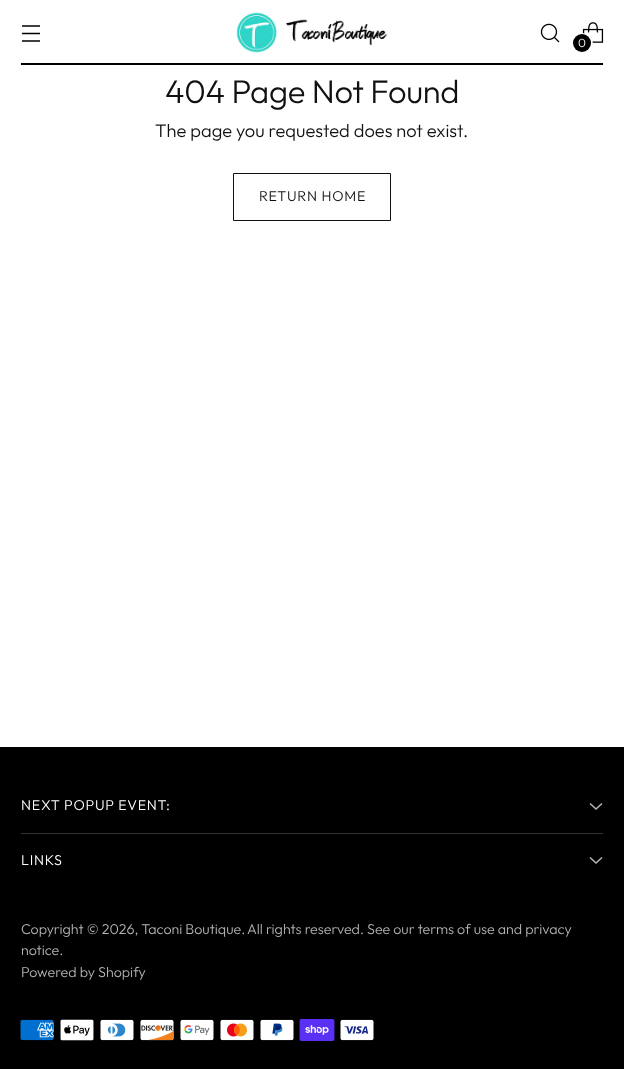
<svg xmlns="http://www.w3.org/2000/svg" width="624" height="1069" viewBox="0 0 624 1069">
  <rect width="100%" height="100%" fill="#fff"/>
  <path d="M21 63h582v2H21z" fill="#000"/>
  <path d="M22 33.5H40M22 26H40M22 41H40" fill="none" stroke="#000" stroke-width="1.3"/>
  <image x="236" y="12" width="152" height="41" href="img/1.png"/>
  <image x="540" y="23" width="20" height="20" href="img/2.png"/>
  <image x="582" y="22" width="22" height="21" href="img/3.png"/>
  <circle cx="582.5" cy="43.5" r="9.5" fill="none" stroke="#fff" stroke-width="2"/>
  <circle cx="582" cy="43" r="9" fill="#000"/>
  <path d="M233.5 173.5h157v47H233.5z" fill="none" stroke="#111"/>
  <path d="M0 747h624v322H0z" fill="#000"/>
  <path d="M21 833h582v1H21z" fill="#333"/>
  <path d="M590 803.5L596 809L602 803.5M590 857.5L596 863L602 857.5" fill="none" stroke="#b3b3b3" stroke-width="1.6"/>
  <image x="20" y="1019" width="34" height="22" href="img/4.png"/>
  <image x="60" y="1019" width="34" height="22" href="img/5.png"/>
  <image x="100" y="1019" width="34" height="22" href="img/6.png"/>
  <image x="140" y="1019" width="34" height="22" href="img/7.png"/>
  <image x="180" y="1019" width="34" height="22" href="img/8.png"/>
  <image x="220" y="1019" width="34" height="22" href="img/9.png"/>
  <image x="260" y="1019" width="34" height="22" href="img/10.png"/>
  <image x="299" y="1019" width="36" height="22" href="img/11.png"/>
  <image x="340" y="1019" width="34" height="22" href="img/12.png"/>
  <text x="578" y="47" font-family="Outfit" font-size="12" font-weight="300" fill="#fff">0</text>
  <text x="165" y="103" font-family="Outfit" font-size="32.75" font-weight="300" letter-spacing="-0.3" fill="#111">404 Page Not Found</text>
  <text x="155" y="137" font-family="Outfit" font-size="18.3" font-weight="300" fill="#111">The page you requested does not exist.</text>
  <text x="259" y="201" font-family="Outfit" font-size="14.25" font-weight="300" letter-spacing="0.75" fill="#111">RETURN HOME</text>
  <g font-family="Outfit" font-size="14.25" font-weight="300" letter-spacing="0.75" fill="#fff">
    <text x="21" y="810">NEXT POPUP EVENT:</text>
    <text x="21" y="865">LINKS</text>
  </g>
  <g font-family="Outfit" font-size="14.25" font-weight="300" fill="#b3b3b3">
    <text x="21" y="934">Copyright © 2026, Taconi Boutique.</text>
    <text x="247" y="934">All rights reserved. See our terms of use and privacy</text>
    <text x="21" y="955">notice.</text>
    <text x="21" y="977">Powered by Shopify</text>
  </g>
</svg>
